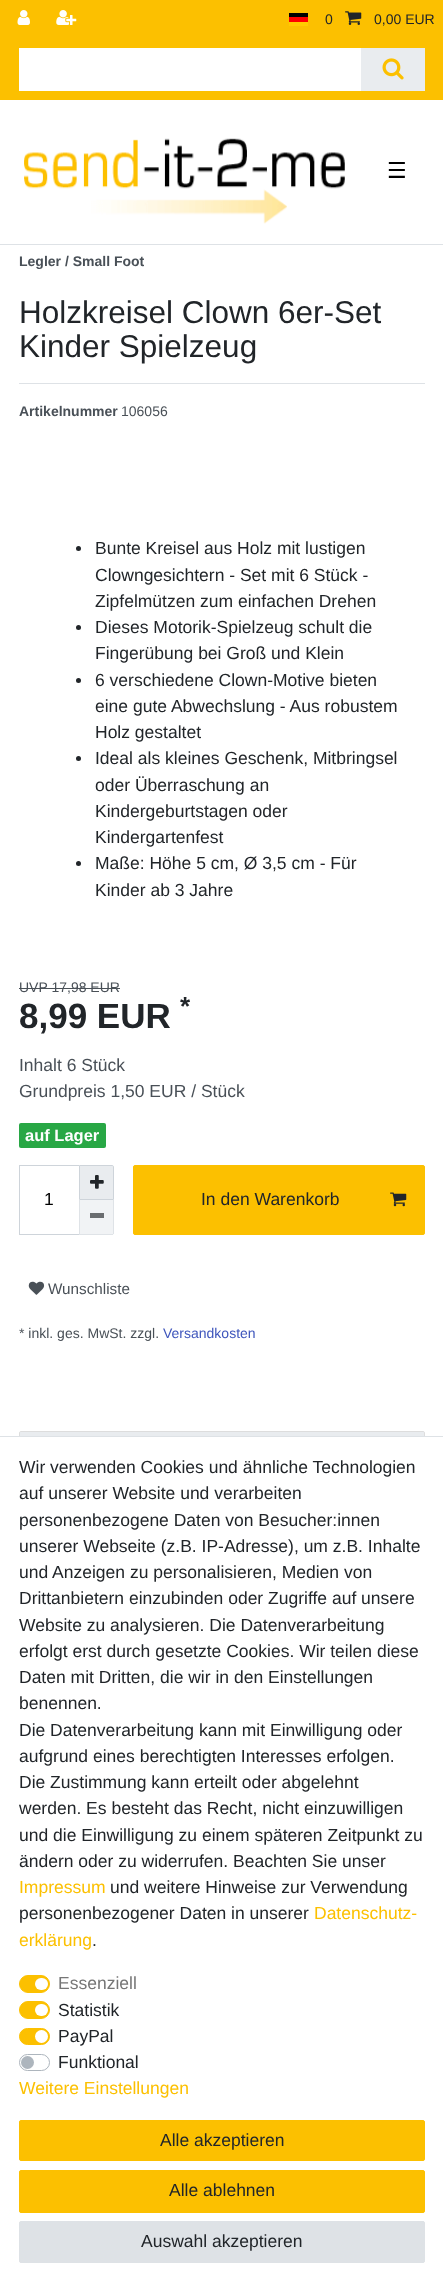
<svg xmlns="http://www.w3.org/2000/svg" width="443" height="2288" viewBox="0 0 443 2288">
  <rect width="100%" height="100%" fill="#fff"/>
  <path d="M0 0h443v100H0z" fill="#fcc000"/>
  <image x="17" y="10" width="13" height="15" href="img/1.png"/>
  <image x="56" y="10" width="21" height="15" href="img/2.png"/>
  <path d="M289 22h19v4H289z" fill="#fc0"/>
  <path d="M289 13h19v4H289z" fill="#000"/>
  <path d="M289 17h19v5H289z" fill="#f00"/>
  <image x="345" y="11" width="17" height="14" href="img/3.png"/>
  <path d="M19 48h342v43H19z" fill="#fff"/>
  <path d="M361 48h64v43H361z" fill="#e9ecef"/>
  <image x="382" y="58" width="22" height="22" href="img/4.png"/>
  <path d="M0 244h443v1H0z" fill="#dee2e6"/>
  <image x="24" y="138" width="321" height="86" href="img/5.png"/>
  <path d="M19 383h406v1H19z" fill="#dee2e6"/>
  <circle cx="78.5" cy="548.5" r="2.5" fill="#212529"/>
  <circle cx="78.5" cy="627.5" r="2.5" fill="#212529"/>
  <circle cx="78.5" cy="680.5" r="2.5" fill="#212529"/>
  <circle cx="78.5" cy="758.5" r="2.5" fill="#212529"/>
  <circle cx="78.5" cy="863.5" r="2.5" fill="#212529"/>
  <path d="M19 988h101v1H19z" fill="#495057"/>
  <rect x="19" y="1123" width="87" height="25" rx="2" fill="#28a745"/>
  <path d="M19 1165h60v1H19z" fill="#ced4da"/>
  <path d="M19 1234h60v1H19z" fill="#ced4da"/>
  <path d="M19 1165h1v70H19z" fill="#ced4da"/>
  <path d="M79.5 1165.5H112C113 1165.5 113.5 1166 113.5 1167V1199.5H79.5Z" fill="#e9ecef" stroke="#ced4da"/>
  <image x="90" y="1175" width="14" height="14" href="img/6.png"/>
  <path d="M79 1200H114V1233C114 1234 113 1235 112 1235H79Z" fill="#f1f3f5"/>
  <path d="M113 1200h1v34H113z" fill="#dfe3e7"/>
  <path d="M79 1234h34v1H79z" fill="#dfe3e7"/>
  <path d="M79 1200h1v35H79z" fill="#dfe3e7"/>
  <path d="M90 1213h14v5H90z" fill="#6a6d70"/>
  <rect x="133.5" y="1165.5" width="291" height="69" rx="1.5" fill="#fcc000" stroke="#fcc000"/>
  <image x="390" y="1192" width="17" height="15" href="img/7.png"/>
  <image x="28" y="1281" width="17" height="14" href="img/8.png"/>
  <path d="M21 1431.5H423C424 1431.5 424.5 1432 424.5 1433V1504.5H19.5V1433C19.5 1432 20 1431.5 21 1431.5Z" fill="#e9ecef" stroke="#ddd"/>
  <path d="M19 1437h406v68H19z" fill="#fff"/>
  <path d="M0 1436h443v1H0z" fill="#dee2e6"/>
  <rect x="19.5" y="1975.5" width="30" height="17" rx="8.5" fill="#fcc000" stroke="#fcc000"/>
  <rect x="35" y="1978" width="13" height="12" rx="6" fill="#fff"/>
  <rect x="19.5" y="2001.5" width="30" height="17" rx="8.5" fill="#fcc000" stroke="#fcc000"/>
  <rect x="35" y="2004" width="13" height="12" rx="6" fill="#fff"/>
  <rect x="19.5" y="2028.5" width="30" height="16" rx="8" fill="#fcc000" stroke="#fcc000"/>
  <circle cx="41.5" cy="2036.5" r="6.5" fill="#fff"/>
  <rect x="19.5" y="2054.5" width="30" height="16" rx="8" fill="none" stroke="#adb5bd"/>
  <circle cx="27.5" cy="2062.5" r="6.5" fill="#adb5bd"/>
  <rect x="19.5" y="2120.5" width="405" height="40" rx="1.5" fill="#fcc000" stroke="#fcc000"/>
  <rect x="19.5" y="2170.5" width="405" height="42" rx="1.5" fill="#fcc000" stroke="#fcc000"/>
  <rect x="19.5" y="2221.5" width="405" height="41" rx="1.5" fill="#dee2e6" stroke="#dee2e6"/>
  <g font-family="Liberation Sans" font-size="14" fill="#212529">
    <text x="325" y="24">0</text>
    <text x="374" y="24">0,00 EUR</text>
  </g>
  <text x="387" y="178" font-family="DejaVu Sans" font-size="22" fill="#000">☰</text>
  <text x="19" y="266" font-family="Liberation Sans" font-size="14" font-weight="bold" fill="#495057">Legler / Small Foot</text>
  <g font-family="Liberation Sans" font-size="31.5" fill="#212529">
    <text x="19" y="323">Holzkreisel Clown 6er-Set</text>
    <text x="19" y="357">Kinder Spielzeug</text>
  </g>
  <text x="19" y="416" font-family="Liberation Sans" font-size="14" font-weight="bold" fill="#495057">Artikelnummer</text>
  <text x="121" y="416" font-family="Liberation Sans" font-size="14" fill="#495057">106056</text>
  <g font-family="Liberation Sans" font-size="17.5" fill="#212529">
    <text x="95" y="554">Bunte Kreisel aus Holz mit lustigen</text>
    <text x="95" y="581">Clowngesichtern - Set mit 6 Stück -</text>
    <text x="95" y="607">Zipfelmützen zum einfachen Drehen</text>
    <text x="95" y="633">Dieses Motorik-Spielzeug schult die</text>
    <text x="95" y="659">Fingerübung bei Groß und Klein</text>
    <text x="95" y="686">6 verschiedene Clown-Motive bieten</text>
    <text x="95" y="712">eine gute Abwechslung - Aus robustem</text>
    <text x="95" y="738">Holz gestaltet</text>
    <text x="95" y="764">Ideal als kleines Geschenk, Mitbringsel</text>
    <text x="95" y="791">oder Überraschung an</text>
    <text x="95" y="817">Kindergeburtstagen oder</text>
    <text x="95" y="843">Kindergartenfest</text>
    <text x="95" y="869">Maße: Höhe 5 cm, Ø 3,5 cm - Für</text>
    <text x="95" y="896">Kinder ab 3 Jahre</text>
  </g>
  <text x="19" y="992" font-family="Liberation Sans" font-size="14" fill="#495057">UVP 17,98 EUR</text>
  <text x="180" y="1015" font-family="Liberation Sans" font-size="26" font-weight="bold" fill="#212529">*</text>
  <text x="19" y="1028" font-family="Liberation Sans" font-size="35" font-weight="bold" fill="#212529">8,99 EUR</text>
  <g font-family="Liberation Sans" font-size="17.5" fill="#495057">
    <text x="19" y="1071">Inhalt 6 Stück</text>
    <text x="19" y="1097">Grundpreis 1,50 EUR / Stück</text>
  </g>
  <text x="25" y="1141" font-family="Liberation Sans" font-size="16.5" font-weight="bold" fill="#fff">auf Lager</text>
  <text x="44" y="1205" font-family="Liberation Sans" font-size="17.5" fill="#000">1</text>
  <text x="201" y="1205" font-family="Liberation Sans" font-size="17.5" fill="#212529">In den Warenkorb</text>
  <text x="48" y="1294" font-family="Liberation Sans" font-size="15.25" fill="#495057">Wunschliste</text>
  <text x="19" y="1338" font-family="Liberation Sans" font-size="14" fill="#495057">* inkl. ges. MwSt. zzgl.</text>
  <text x="163" y="1338" font-family="Liberation Sans" font-size="14" fill="#3e55bc">Versandkosten</text>
  <g font-family="Liberation Sans" font-size="17.5" fill="#212529">
    <text x="19" y="1473">Wir verwenden Cookies und ähnliche Technologien</text>
    <text x="19" y="1499">auf unserer Website und verarbeiten</text>
    <text x="19" y="1526">personenbezogene Daten von Besucher:innen</text>
    <text x="19" y="1552">unserer Webseite (z.B. IP-Adresse), um z.B. Inhalte</text>
    <text x="19" y="1578">und Anzeigen zu personalisieren, Medien von</text>
    <text x="19" y="1604">Drittanbietern einzubinden oder Zugriffe auf unsere</text>
    <text x="19" y="1631">Website zu analysieren. Die Datenverarbeitung</text>
    <text x="19" y="1657">erfolgt erst durch gesetzte Cookies. Wir teilen diese</text>
    <text x="19" y="1683">Daten mit Dritten, die wir in den Einstellungen</text>
    <text x="19" y="1709">benennen.</text>
    <text x="19" y="1736">Die Datenverarbeitung kann mit Einwilligung oder</text>
    <text x="19" y="1762">aufgrund eines berechtigten Interesses erfolgen.</text>
    <text x="19" y="1788">Die Zustimmung kann erteilt oder abgelehnt</text>
    <text x="19" y="1814">werden. Es besteht das Recht, nicht einzuwilligen</text>
    <text x="19" y="1841">und die Einwilligung zu einem späteren Zeitpunkt zu</text>
    <text x="19" y="1867">ändern oder zu widerrufen. Beachten Sie unser</text>
  </g>
  <text x="19" y="1893" font-family="Liberation Sans" font-size="17.5" fill="#fcc000">Impressum</text>
  <g font-family="Liberation Sans" font-size="17.5" fill="#212529">
    <text x="110" y="1893">und weitere Hinweise zur Verwendung</text>
    <text x="19" y="1919">personenbezogener Daten in unserer</text>
  </g>
  <g font-family="Liberation Sans" font-size="17.5" fill="#fcc000">
    <text x="314" y="1919">Datenschutz-</text>
    <text x="19" y="1946">erklärung</text>
  </g>
  <text x="92" y="1946" font-family="Liberation Sans" font-size="17.5" fill="#212529">.</text>
  <text x="58" y="1989" font-family="Liberation Sans" font-size="17.5" fill="#767676">Essenziell</text>
  <g font-family="Liberation Sans" font-size="17.5" fill="#212529">
    <text x="58" y="2016">Statistik</text>
    <text x="58" y="2042">PayPal</text>
    <text x="58" y="2068">Funktional</text>
  </g>
  <text x="19" y="2094" font-family="Liberation Sans" font-size="17.5" fill="#fcc000">Weitere Einstellungen</text>
  <g font-family="Liberation Sans" font-size="17.5" fill="#212529">
    <text x="160" y="2146">Alle akzeptieren</text>
    <text x="169" y="2196">Alle ablehnen</text>
    <text x="141" y="2247">Auswahl akzeptieren</text>
  </g>
</svg>
